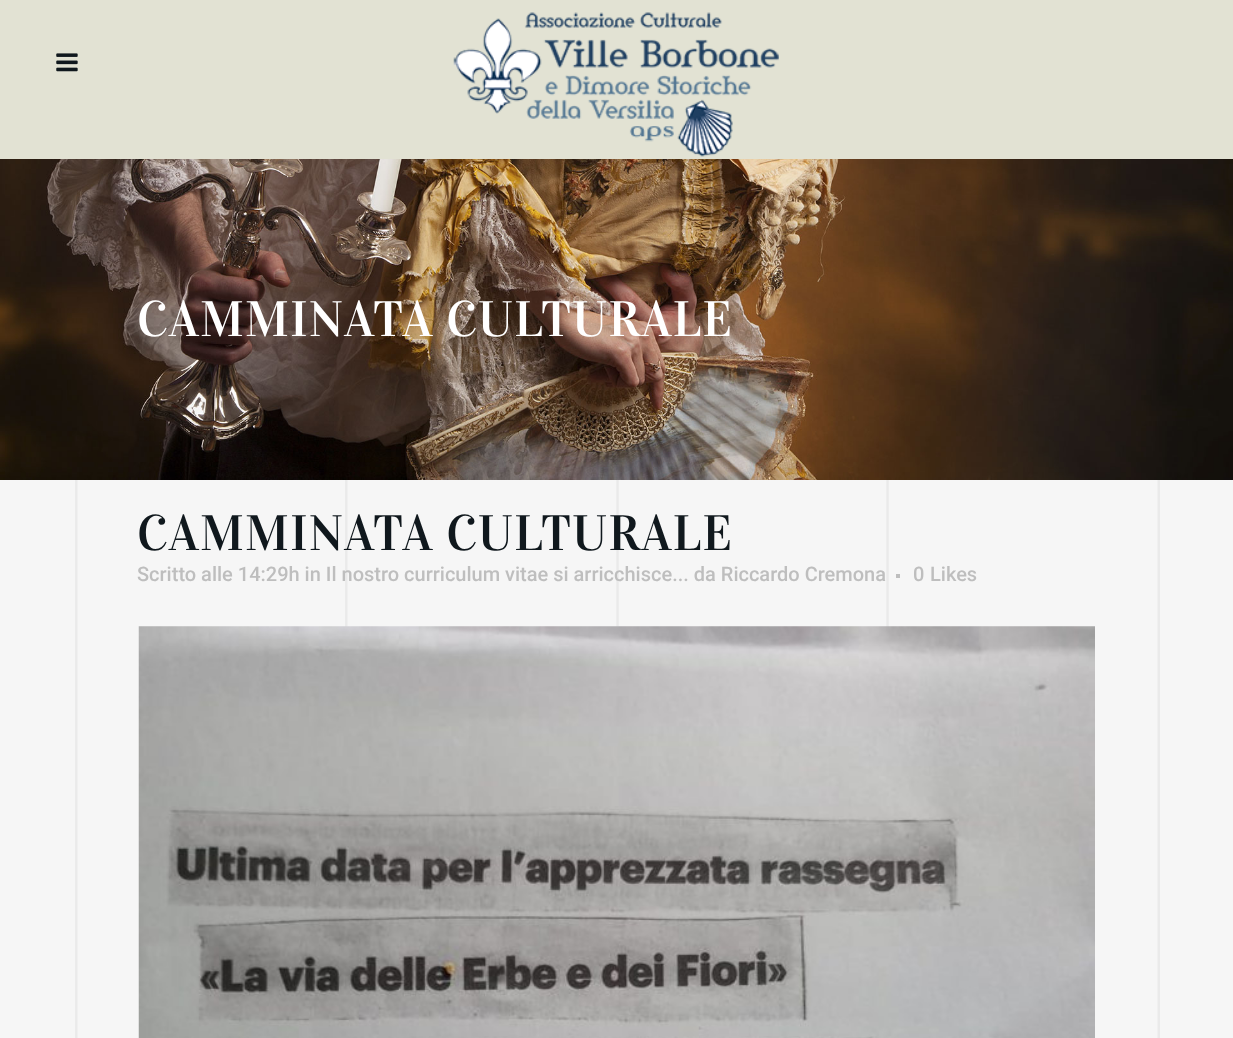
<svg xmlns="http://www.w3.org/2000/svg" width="1233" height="1038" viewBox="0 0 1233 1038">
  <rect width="100%" height="100%" fill="#f6f6f6"/>
  <image x="75" y="480" width="1085" height="558" href="img/1.png"/>
  <path d="M0 0h1233v159H0z" fill="#e2e2d3"/>
  <image x="56" y="53" width="22" height="19" href="img/2.png"/>
  <image x="453" y="12" width="326" height="145" href="img/3.png"/>
  <image x="0" y="159" width="1233" height="321" href="img/4.png"/>
  <path d="M896 574h4v4H896z" fill="#bebebe"/>
  <image x="138" y="626" width="957" height="412" href="img/5.png"/>
  <text x="137" y="336" font-family="Vidaloka" font-size="50" letter-spacing="1.25" fill="#fff">CAMMINATA CULTURALE</text>
  <text x="137" y="550" font-family="Vidaloka" font-size="50" letter-spacing="1.25" fill="#10181d">CAMMINATA CULTURALE</text>
  <g font-family="Roboto" font-size="20" font-weight="500" fill="#bebebe">
    <text x="137" y="581">Scritto alle 14:29h in Il nostro curriculum vitae si arricchisce... da Riccardo Cremona</text>
    <text x="913" y="581">0</text>
    <text x="930" y="581">Likes</text>
  </g>
</svg>
